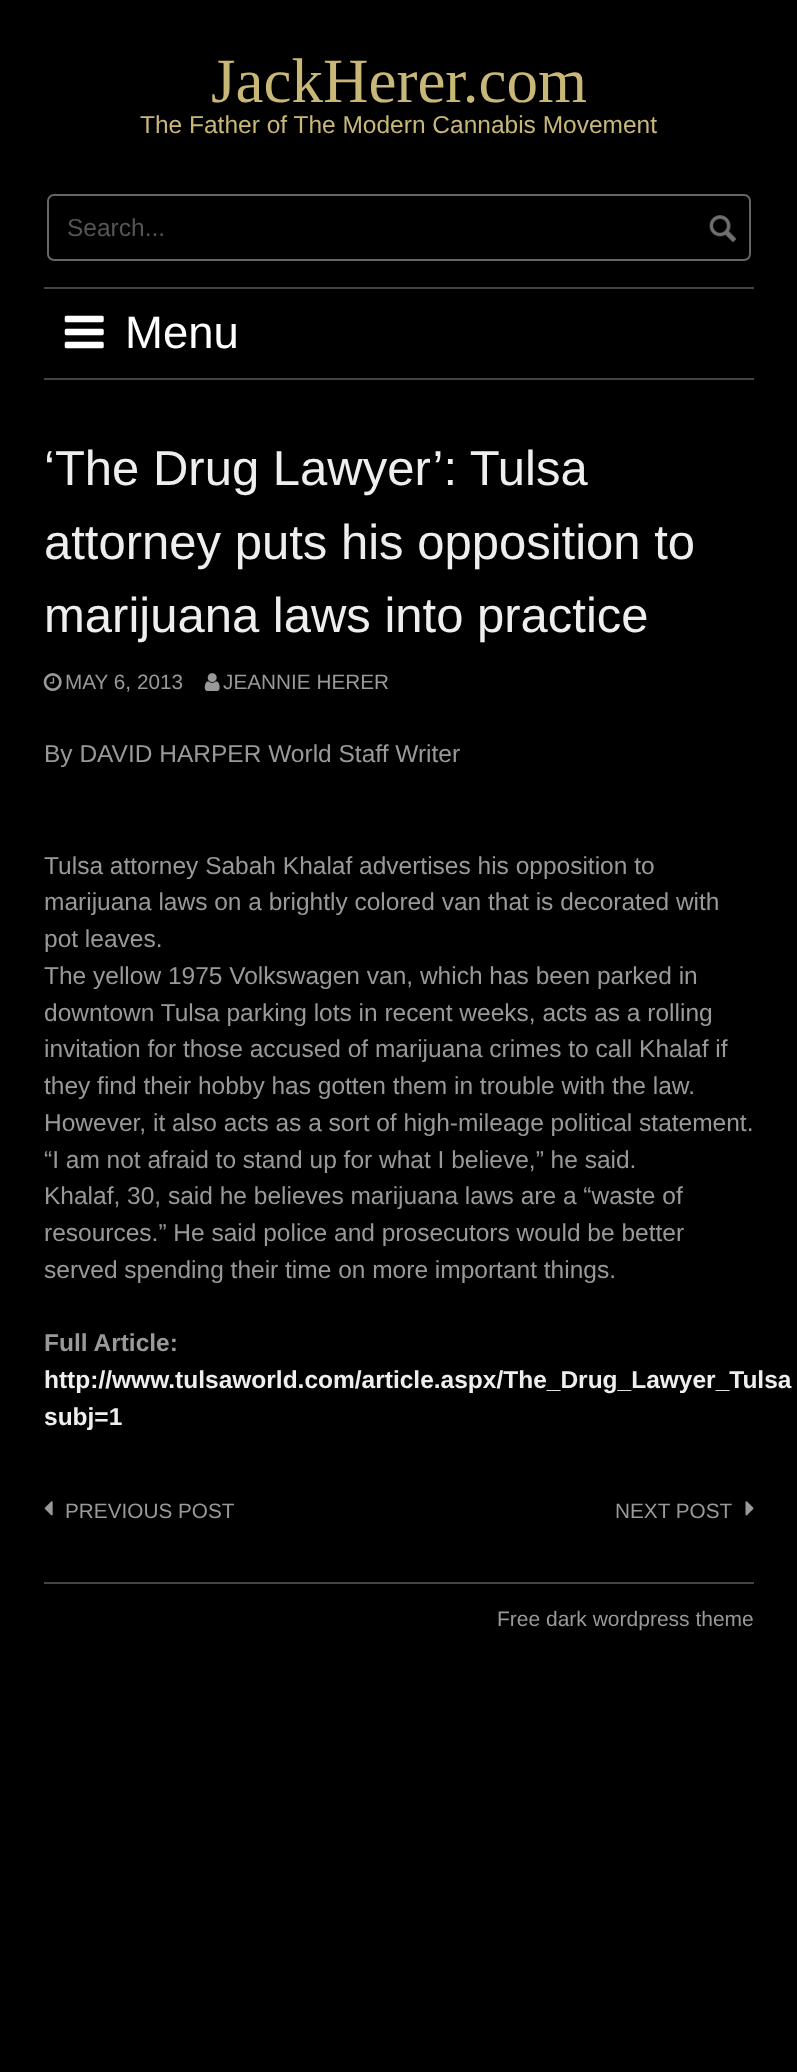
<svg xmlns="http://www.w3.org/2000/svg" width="797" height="2072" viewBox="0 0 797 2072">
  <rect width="100%" height="100%" fill="#000"/>
  <rect x="48" y="195" width="702" height="65" rx="6" fill="none" stroke="#666" stroke-width="2"/>
  <image x="709" y="215" width="27" height="28" href="img/1.png"/>
  <path d="M44 287h710v2H44z" fill="#444"/>
  <path d="M44 378h710v2H44z" fill="#444"/>
  <image x="64" y="315" width="40" height="34" href="img/2.png"/>
  <image x="43" y="673" width="19" height="18" href="img/3.png"/>
  <image x="204" y="673" width="16" height="18" href="img/4.png"/>
  <image x="44" y="1501" width="9" height="15" href="img/5.png"/>
  <image x="745" y="1501" width="9" height="15" href="img/6.png"/>
  <path d="M44 1582h710v2H44z" fill="#444"/>
  <text x="211" y="102" font-family="Liberation Serif" font-size="63" fill="#c9b778">JackHerer.com</text>
  <text x="140" y="133" font-family="Liberation Sans" font-size="24.5" fill="#c9b778">The Father of The Modern Cannabis Movement</text>
  <text x="67" y="236" font-family="Liberation Sans" font-size="24.5" fill="#555">Search...</text>
  <text x="125" y="348" font-family="Liberation Sans" font-size="45.5" fill="#fff">Menu</text>
  <g font-family="Liberation Sans" font-size="49" fill="#eee">
    <text x="44" y="485">‘The Drug Lawyer’: Tulsa</text>
    <text x="44" y="559">attorney puts his opposition to</text>
    <text x="44" y="632">marijuana laws into practice</text>
  </g>
  <g font-family="Liberation Sans" font-size="20.75" fill="#999">
    <text x="65" y="689">MAY 6, 2013</text>
    <text x="223" y="689">JEANNIE HERER</text>
  </g>
  <g font-family="Liberation Sans" font-size="24.5" fill="#999">
    <text x="44" y="762">By DAVID HARPER World Staff Writer</text>
    <text x="44" y="874">Tulsa attorney Sabah Khalaf advertises his opposition to</text>
    <text x="44" y="910">marijuana laws on a brightly colored van that is decorated with</text>
    <text x="44" y="947">pot leaves.</text>
    <text x="44" y="984">The yellow 1975 Volkswagen van, which has been parked in</text>
    <text x="44" y="1021">downtown Tulsa parking lots in recent weeks, acts as a rolling</text>
    <text x="44" y="1057">invitation for those accused of marijuana crimes to call Khalaf if</text>
    <text x="44" y="1094">they find their hobby has gotten them in trouble with the law.</text>
    <text x="44" y="1131">However, it also acts as a sort of high-mileage political statement.</text>
    <text x="44" y="1168">“I am not afraid to stand up for what I believe,” he said.</text>
    <text x="44" y="1204">Khalaf, 30, said he believes marijuana laws are a “waste of</text>
    <text x="44" y="1241">resources.” He said police and prosecutors would be better</text>
    <text x="44" y="1278">served spending their time on more important things.</text>
  </g>
  <text x="44" y="1351" font-family="Liberation Sans" font-size="24.5" font-weight="bold" fill="#999">Full Article:</text>
  <g font-family="Liberation Sans" font-size="24.5" font-weight="bold" fill="#eee">
    <text x="44" y="1388">http://www.tulsaworld.com/article.aspx/The_Drug_Lawyer_Tulsa</text>
    <text x="44" y="1425">subj=1</text>
  </g>
  <g font-family="Liberation Sans" font-size="20.75" fill="#999">
    <text x="65" y="1518">PREVIOUS POST</text>
    <text x="615" y="1518">NEXT POST</text>
  </g>
  <text x="497" y="1626" font-family="Liberation Sans" font-size="21" fill="#999">Free dark wordpress theme</text>
</svg>
